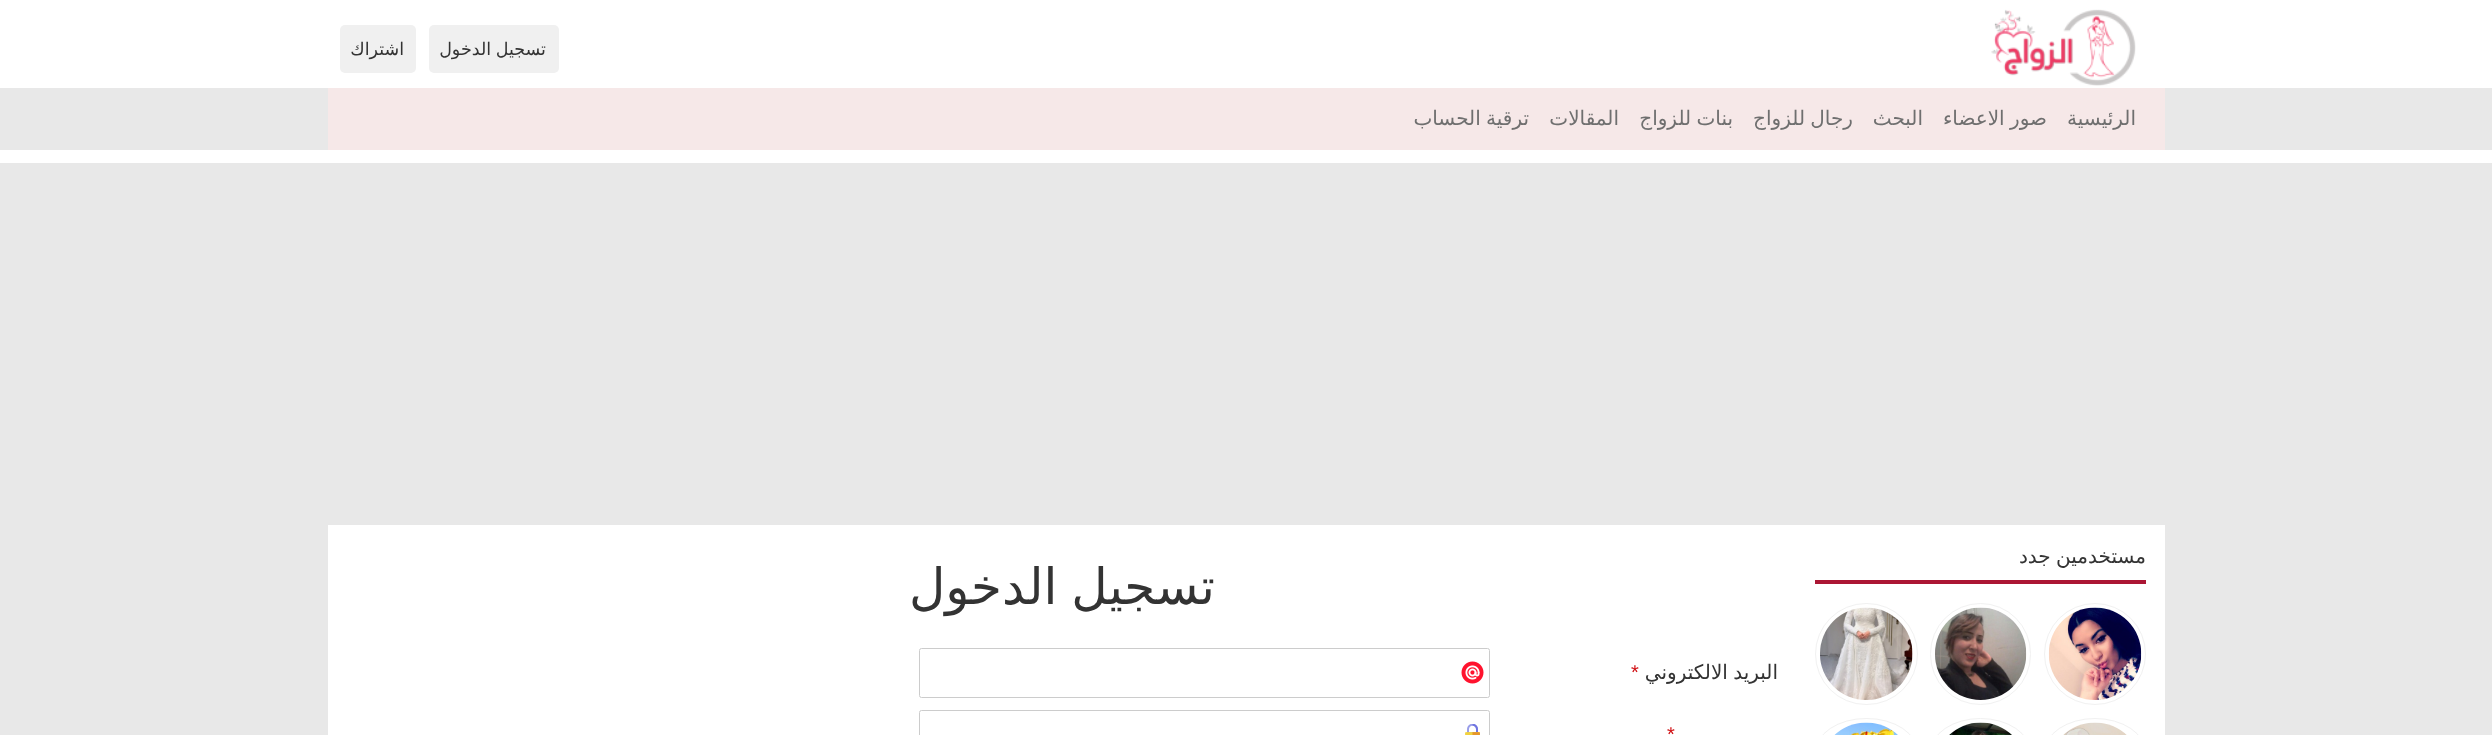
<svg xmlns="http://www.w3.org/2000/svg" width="2492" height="735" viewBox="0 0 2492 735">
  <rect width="100%" height="100%" fill="#fff"/>
  <image x="1991" y="9" width="145" height="77" href="img/1.png"/>
  <path d="M0 88h2492v62H0z" fill="#e8e8e8"/>
  <path d="M328 88h1837v62H328z" fill="#f6e8e8"/>
  <rect x="429" y="25" width="130" height="48" rx="5" fill="#f0f0f0"/>
  <rect x="340" y="25" width="76" height="48" rx="5" fill="#f0f0f0"/>
  <path d="M0 163h2492v572H0z" fill="#e8e8e8"/>
  <path d="M328 525h1837v210H328z" fill="#fff"/>
  <path d="M1815 580h331v4H1815z" fill="#ab1634"/>
  <circle cx="2095" cy="654" r="50.5" fill="none" stroke="#f1f1f1"/>
  <image x="2048" y="607" width="94" height="93" href="img/2.png"/>
  <rect x="1930.5" y="603.5" width="100" height="101" rx="50" fill="none" stroke="#f1f1f1"/>
  <image x="1935" y="607" width="92" height="93" href="img/3.png"/>
  <rect x="1815.5" y="603.5" width="102" height="101" rx="50.5" fill="none" stroke="#f1f1f1"/>
  <image x="1820" y="607" width="93" height="93" href="img/4.png"/>
  <rect x="2044.5" y="718.5" width="101" height="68" rx="50.5" fill="none" stroke="#f1f1f1"/>
  <image x="2063" y="722" width="64" height="13" href="img/5.png"/>
  <rect x="1930.5" y="718.5" width="100" height="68" rx="50" fill="none" stroke="#f1f1f1"/>
  <image x="1949" y="722" width="63" height="13" href="img/6.png"/>
  <rect x="1815.5" y="718.5" width="102" height="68" rx="50.5" fill="none" stroke="#f1f1f1"/>
  <image x="1834" y="722" width="64" height="13" href="img/7.png"/>
  <image x="1461" y="661" width="23" height="23" href="img/8.png"/>
  <rect x="919.5" y="648.5" width="570" height="49" rx="2" fill="none" stroke="#ccc"/>
  <image x="1465" y="724" width="15" height="11" href="img/9.png"/>
  <rect x="919.5" y="710.5" width="570" height="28" rx="2" fill="none" stroke="#ccc"/>
  <g font-family="DejaVu Sans" font-size="17.5" direction="rtl" fill="#333">
    <text x="546" y="55" word-spacing="-1">تسجيل الدخول</text>
    <text x="404" y="55">اشتراك</text>
  </g>
  <g font-family="DejaVu Sans" font-size="20" direction="rtl" fill="#6f6f6f">
    <text x="2136" y="125">الرئيسية</text>
    <text x="2047" y="125" word-spacing="-1">صور الاعضاء</text>
    <text x="1923" y="125">البحث</text>
    <text x="1853" y="125" word-spacing="-1">رجال للزواج</text>
    <text x="1733" y="125" word-spacing="-1">بنات للزواج</text>
    <text x="1619" y="125">المقالات</text>
    <text x="1529" y="125" word-spacing="-1">ترقية الحساب</text>
  </g>
  <text x="2146" y="563" word-spacing="-1" font-family="DejaVu Sans" font-size="20" direction="rtl" fill="#333">مستخدمين جدد</text>
  <text x="1215" y="604" word-spacing="-2" font-family="DejaVu Sans" font-size="50" direction="rtl" fill="#333">تسجيل الدخول</text>
  <text x="1778" y="679" word-spacing="-1" font-family="DejaVu Sans" font-size="20" direction="rtl" fill="#333">البريد الالكتروني</text>
  <g font-family="Liberation Sans" font-size="20" fill="#d00e12">
    <text x="1631" y="679">*</text>
    <text x="1667" y="741">*</text>
  </g>
</svg>
